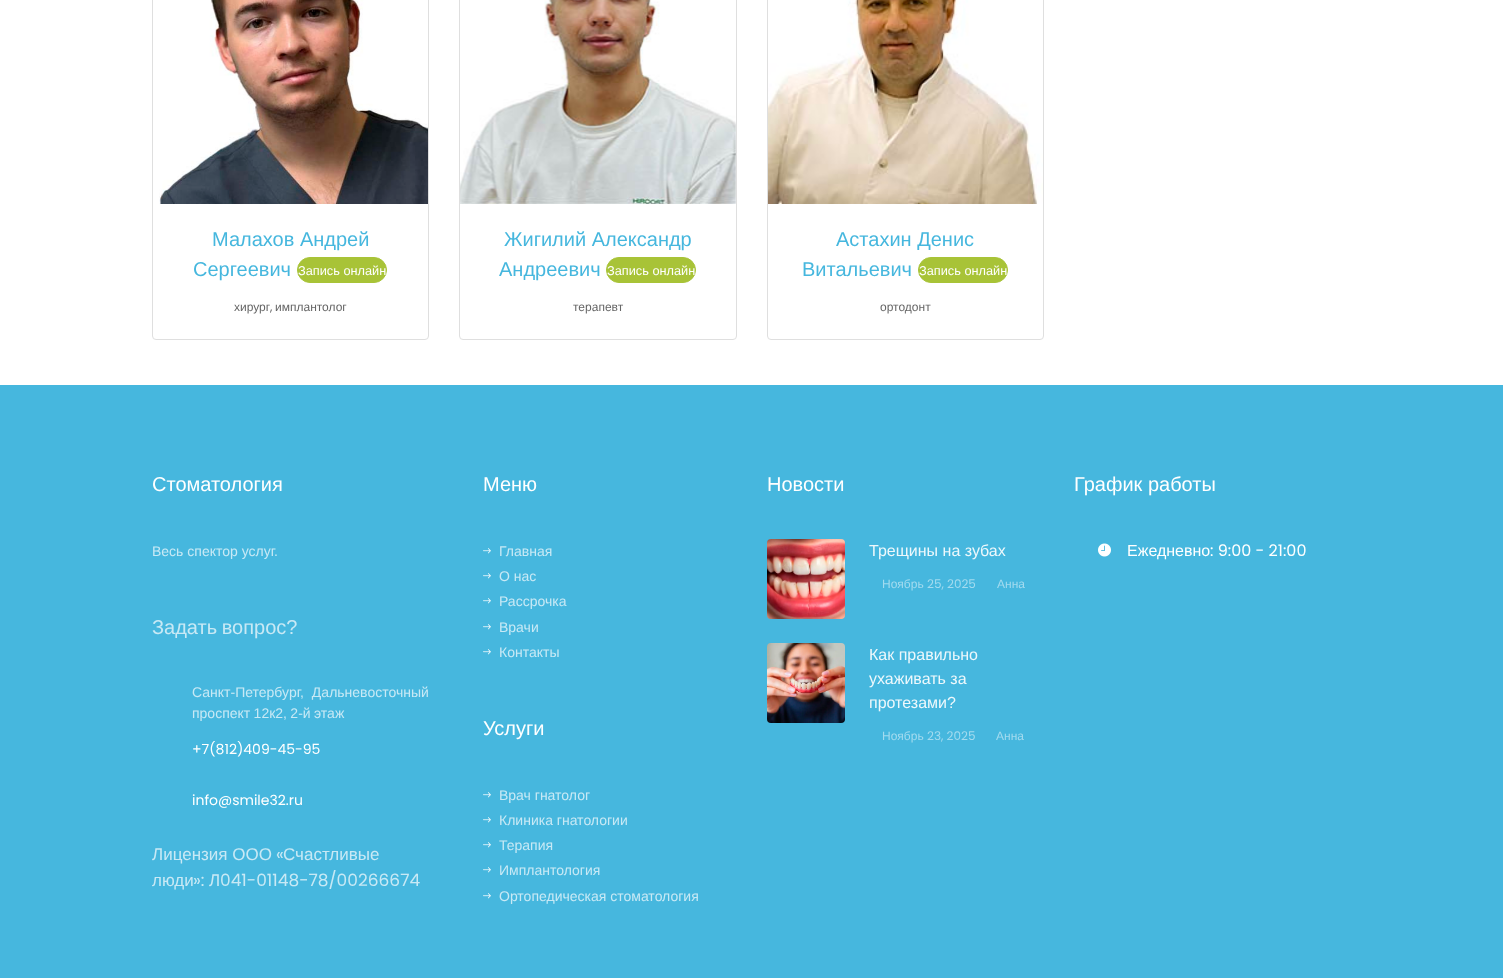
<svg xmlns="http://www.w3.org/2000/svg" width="1503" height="978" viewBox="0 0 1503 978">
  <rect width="100%" height="100%" fill="#fff"/>
  <rect x="152.5" y="-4.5" width="276" height="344" rx="3.5" fill="none" stroke="#dfdfdf"/>
  <image x="159" y="0" width="269" height="204" href="img/1.png"/>
  <rect x="297.5" y="257.5" width="89" height="25" rx="12.5" fill="#a8c337" stroke="#a8c337"/>
  <rect x="459.5" y="-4.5" width="277" height="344" rx="3.5" fill="none" stroke="#dfdfdf"/>
  <image x="460" y="0" width="276" height="204" href="img/2.png"/>
  <rect x="606.5" y="257.5" width="89" height="25" rx="12.5" fill="#a8c337" stroke="#a8c337"/>
  <rect x="767.5" y="-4.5" width="276" height="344" rx="3.5" fill="none" stroke="#dfdfdf"/>
  <image x="768" y="0" width="275" height="204" href="img/3.png"/>
  <rect x="918.5" y="257.5" width="89" height="25" rx="12.5" fill="#a8c337" stroke="#a8c337"/>
  <path d="M0 385h1503v593H0z" fill="#46b7de"/>
  <image x="483" y="548" width="8" height="6" href="img/4.png"/>
  <image x="483" y="573" width="8" height="6" href="img/4.png"/>
  <image x="483" y="598" width="8" height="6" href="img/4.png"/>
  <image x="483" y="624" width="8" height="6" href="img/4.png"/>
  <image x="483" y="649" width="8" height="6" href="img/4.png"/>
  <image x="483" y="792" width="8" height="6" href="img/4.png"/>
  <image x="483" y="817" width="8" height="6" href="img/4.png"/>
  <image x="483" y="842" width="8" height="6" href="img/4.png"/>
  <image x="483" y="867" width="8" height="6" href="img/4.png"/>
  <image x="483" y="893" width="8" height="6" href="img/4.png"/>
  <image x="767" y="539" width="78" height="80" href="img/5.png"/>
  <image x="767" y="643" width="78" height="80" href="img/6.png"/>
  <image x="1098" y="543" width="13" height="14" href="img/7.png"/>
  <g font-family="Liberation Sans" font-size="20" fill="#46b7de">
    <text x="212" y="246">Малахов Андрей</text>
    <text x="193" y="276">Сергеевич</text>
  </g>
  <text x="298" y="275" font-family="Liberation Sans" font-size="12.75" fill="#fff">Запись онлайн</text>
  <text x="234" y="311" font-family="Liberation Sans" font-size="12" fill="#666">хирург</text>
  <text x="270" y="311" font-family="Poppins" font-size="12" fill="#666">,</text>
  <text x="275" y="311" font-family="Liberation Sans" font-size="12" fill="#666">имплантолог</text>
  <g font-family="Liberation Sans" font-size="20" fill="#46b7de">
    <text x="504" y="246">Жигилий Александр</text>
    <text x="499" y="276">Андреевич</text>
  </g>
  <text x="607" y="275" font-family="Liberation Sans" font-size="12.75" fill="#fff">Запись онлайн</text>
  <text x="573" y="311" font-family="Liberation Sans" font-size="12" fill="#666">терапевт</text>
  <g font-family="Liberation Sans" font-size="20" fill="#46b7de">
    <text x="836" y="246">Астахин Денис</text>
    <text x="802" y="276">Витальевич</text>
  </g>
  <text x="919" y="275" font-family="Liberation Sans" font-size="12.75" fill="#fff">Запись онлайн</text>
  <text x="880" y="311" font-family="Liberation Sans" font-size="12" fill="#666">ортодонт</text>
  <text x="152" y="491" font-family="Liberation Sans" font-size="20" fill="#fff">Стоматология</text>
  <text x="152" y="556" font-family="Liberation Sans" font-size="14" fill="#c8e9f5">Весь спектор услуг.</text>
  <text x="152" y="634" word-spacing="-1" font-family="Liberation Sans" font-size="20" fill="#c8e9f5">Задать вопрос?</text>
  <g font-family="Liberation Sans" font-size="14" fill="#c8e9f5">
    <text x="192" y="697" word-spacing="4">Санкт-Петербург, Дальневосточный</text>
    <text x="192" y="718" word-spacing="-0.5">проспект 12к2, 2-й этаж</text>
  </g>
  <g font-family="Poppins" font-size="14" fill="#fff">
    <text x="192" y="754">+7(812)409-45-95</text>
    <text x="192" y="805">info@smile32.ru</text>
  </g>
  <text x="152" y="860" font-family="Liberation Sans" font-size="17" fill="#c8e9f5">Лицензия ООО</text>
  <text x="276" y="860" font-family="Poppins" font-size="17" fill="#c8e9f5">«</text>
  <g font-family="Liberation Sans" font-size="17" fill="#c8e9f5">
    <text x="283" y="860">Счастливые</text>
    <text x="152" y="886">люди</text>
  </g>
  <text x="193" y="886" font-family="Poppins" font-size="17" fill="#c8e9f5">»:</text>
  <text x="209" y="886" font-family="Liberation Sans" font-size="17" fill="#c8e9f5">Л</text>
  <text x="220" y="886" font-family="Poppins" font-size="17" fill="#c8e9f5">041-01148-78/00266674</text>
  <text x="483" y="491" font-family="Liberation Sans" font-size="20" fill="#fff">Меню</text>
  <g font-family="Liberation Sans" font-size="14" fill="#c8e9f5">
    <text x="499" y="556">Главная</text>
    <text x="499" y="581">О нас</text>
    <text x="499" y="606">Рассрочка</text>
    <text x="499" y="632">Врачи</text>
    <text x="499" y="657">Контакты</text>
  </g>
  <text x="483" y="735" font-family="Liberation Sans" font-size="20" fill="#fff">Услуги</text>
  <g font-family="Liberation Sans" font-size="14" fill="#c8e9f5">
    <text x="499" y="800">Врач гнатолог</text>
    <text x="499" y="825">Клиника гнатологии</text>
    <text x="499" y="850">Терапия</text>
    <text x="499" y="875">Имплантология</text>
    <text x="499" y="901">Ортопедическая стоматология</text>
  </g>
  <text x="767" y="491" font-family="Liberation Sans" font-size="20" fill="#fff">Новости</text>
  <text x="869" y="556" font-family="Liberation Sans" font-size="16" fill="#edf8fc">Трещины на зубах</text>
  <text x="882" y="588" font-family="Liberation Sans" font-size="12" fill="#a3dbef">Ноябрь</text>
  <text x="927" y="588" font-family="Poppins" font-size="12" fill="#a3dbef">25, 2025</text>
  <text x="997" y="588" font-family="Liberation Sans" font-size="12" fill="#a3dbef">Анна</text>
  <g font-family="Liberation Sans" font-size="16" fill="#edf8fc">
    <text x="869" y="660">Как правильно</text>
    <text x="869" y="684">ухаживать за</text>
    <text x="869" y="708">протезами?</text>
  </g>
  <text x="882" y="740" font-family="Liberation Sans" font-size="12" fill="#a3dbef">Ноябрь</text>
  <text x="927" y="740" font-family="Poppins" font-size="12" fill="#a3dbef">23, 2025</text>
  <text x="996" y="740" font-family="Liberation Sans" font-size="12" fill="#a3dbef">Анна</text>
  <text x="1074" y="491" font-family="Liberation Sans" font-size="20" fill="#fff">График работы</text>
  <text x="1127" y="556" font-family="Liberation Sans" font-size="16" fill="#fff">Ежедневно</text>
  <text x="1210" y="556" font-family="Poppins" font-size="16" fill="#fff">: 9:00 - 21:00</text>
</svg>
